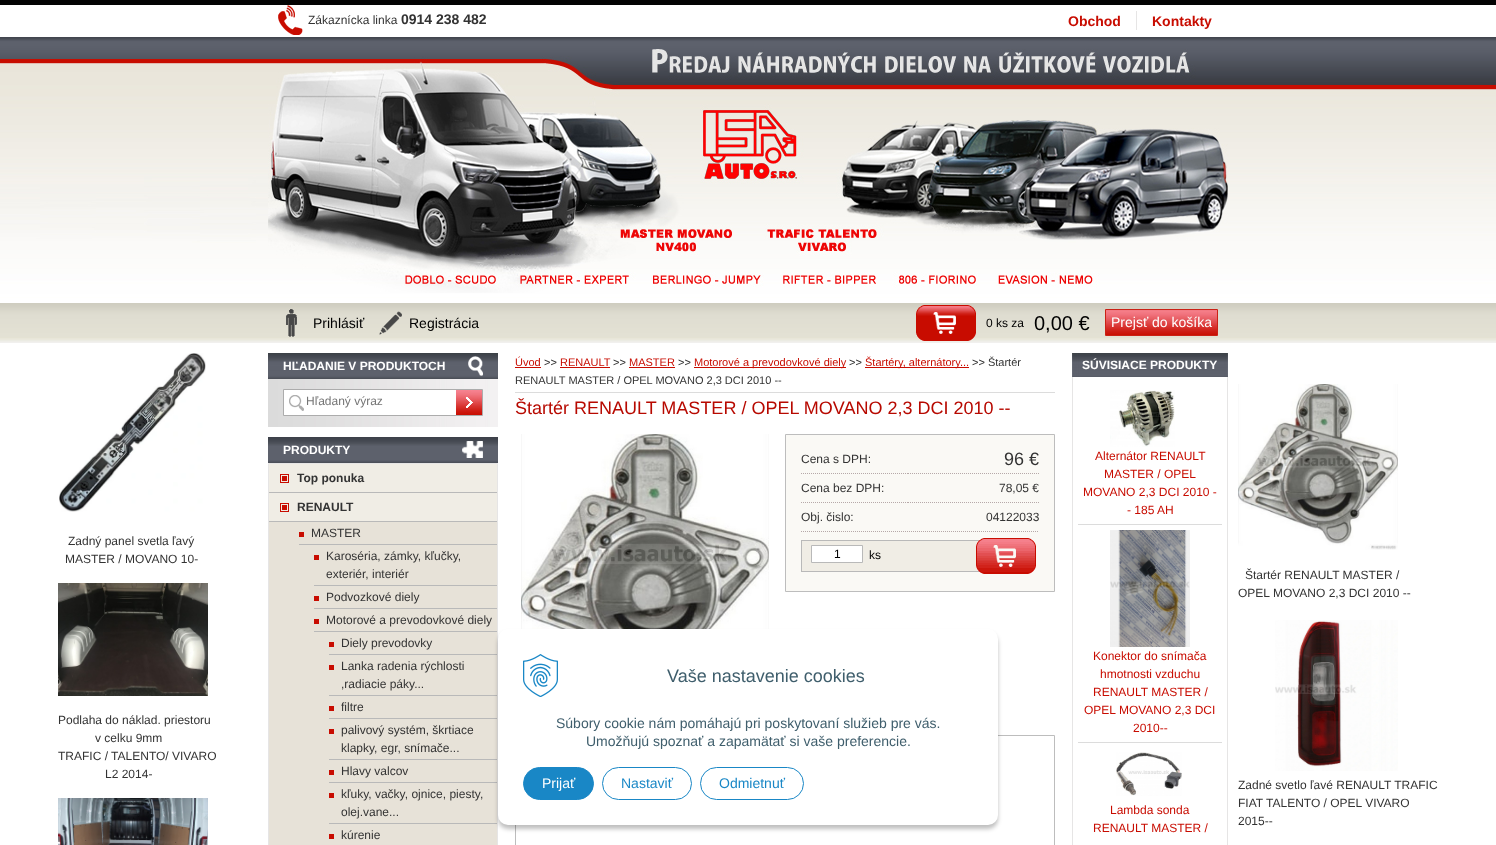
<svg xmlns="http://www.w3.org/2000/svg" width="1496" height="845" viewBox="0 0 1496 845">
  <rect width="100%" height="100%" fill="#fff"/>
  <image x="0" y="37" width="1496" height="306" href="img/1.png"/>
  <path d="M0 0h1496v5H0z" fill="#030303"/>
  <image x="278" y="5" width="25" height="30" href="img/2.png"/>
  <path d="M1136 11h1v19H1136z" fill="#e6e5e5"/>
  <image x="268" y="49" width="960" height="244" href="img/3.png"/>
  <image x="286" y="309" width="11" height="28" href="img/4.png"/>
  <image x="379" y="311" width="23" height="24" href="img/5.png"/>
  <image x="916" y="305" width="60" height="36" href="img/6.png"/>
  <image x="1106" y="310" width="111" height="25" href="img/7.png"/>
  <path d="M1105.5 309.5h112v26H1105.5z" fill="none" stroke="#ca2115"/>
  <image x="59" y="353" width="147" height="159" href="img/8.png"/>
  <image x="58" y="583" width="150" height="113" href="img/9.png"/>
  <image x="58" y="798" width="150" height="47" href="img/10.png"/>
  <image x="268" y="353" width="230" height="26" href="img/11.png"/>
  <image x="468" y="356" width="15" height="20" href="img/12.png"/>
  <image x="268" y="379" width="230" height="48" href="img/13.png"/>
  <path d="M284 390h172v25H284z" fill="#fff"/>
  <image x="289" y="395" width="15" height="16" href="img/14.png"/>
  <path d="M283.5 389.5h199v26H283.5z" fill="none" stroke="#acacac"/>
  <image x="456" y="390" width="26" height="25" href="img/15.png"/>
  <image x="268" y="437" width="230" height="26" href="img/16.png"/>
  <image x="462" y="441" width="21" height="17" href="img/17.png"/>
  <path d="M269 464h228v57H269z" fill="#f0ede5"/>
  <path d="M268.5 463.5h229v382H268.5z" fill="none" stroke="#e6e5e5"/>
  <image x="280" y="474" width="9" height="9" href="img/18.png"/>
  <path d="M269 492h228v1H269z" fill="#b9b9b9"/>
  <image x="280" y="503" width="9" height="9" href="img/18.png"/>
  <path d="M269 521h228v1H269z" fill="#b9b9b9"/>
  <path d="M269 522h228v323H269z" fill="#e7e2d8"/>
  <path d="M299 532h5v5H299z" fill="#c80c00"/>
  <path d="M299 544h198v1H299z" fill="#b9b9b9"/>
  <path d="M314 555h5v5H314z" fill="#c80c00"/>
  <path d="M314 585h183v1H314z" fill="#b9b9b9"/>
  <path d="M314 596h5v5H314z" fill="#c80c00"/>
  <path d="M314 608h183v1H314z" fill="#b9b9b9"/>
  <path d="M314 619h5v5H314z" fill="#c80c00"/>
  <path d="M314 631h183v1H314z" fill="#b9b9b9"/>
  <path d="M329 642h5v5H329z" fill="#c80c00"/>
  <path d="M329 654h168v1H329z" fill="#b9b9b9"/>
  <path d="M329 665h5v5H329z" fill="#c80c00"/>
  <path d="M329 695h168v1H329z" fill="#b9b9b9"/>
  <path d="M329 706h5v5H329z" fill="#c80c00"/>
  <path d="M329 718h168v1H329z" fill="#b9b9b9"/>
  <path d="M329 729h5v5H329z" fill="#c80c00"/>
  <path d="M329 759h168v1H329z" fill="#b9b9b9"/>
  <path d="M329 770h5v5H329z" fill="#c80c00"/>
  <path d="M329 782h168v1H329z" fill="#b9b9b9"/>
  <path d="M329 793h5v5H329z" fill="#c80c00"/>
  <path d="M329 823h168v1H329z" fill="#b9b9b9"/>
  <path d="M329 834h5v5H329z" fill="#c80c00"/>
  <path d="M515 392h540v1H515z" fill="#dcdcdc"/>
  <path d="M515 367h26v1H515z" fill="#c80c00"/>
  <path d="M560 367h50v1H560z" fill="#c80c00"/>
  <path d="M629 367h46v1H629z" fill="#c80c00"/>
  <path d="M694 367h152v1H694z" fill="#c80c00"/>
  <path d="M865 367h104v1H865z" fill="#c80c00"/>
  <image x="521" y="434" width="248" height="195" href="img/19.png"/>
  <path d="M785.5 434.5h269v157H785.5z" fill="#faf9f5" stroke="#bdbdbd"/>
  <path d="M801 531.5H1039" fill="none" stroke="#b6a9a9" stroke-dasharray="1 1"/>
  <path d="M801 473.5H908" fill="none" stroke="#b6a9a9" stroke-dasharray="1 1"/>
  <path d="M908 473.5H1039" fill="none" stroke="#b6a9a9" stroke-dasharray="1 1"/>
  <path d="M801 502.5H908" fill="none" stroke="#b6a9a9" stroke-dasharray="1 1"/>
  <path d="M908 502.5H1039" fill="none" stroke="#b6a9a9" stroke-dasharray="1 1"/>
  <image x="801" y="538" width="235" height="36" href="img/20.png"/>
  <path d="M811.5 545.5h51v17H811.5z" fill="#fff" stroke="#b9b9b9"/>
  <path d="M515.5 735.5h539v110H515.5z" fill="none" stroke="#bdbdbd"/>
  <image x="1072" y="353" width="156" height="24" href="img/21.png"/>
  <path d="M1227 377h1v468H1227z" fill="#e6e5e5"/>
  <path d="M1072 377h1v468H1072z" fill="#e6e5e5"/>
  <path d="M1078 524h144v1H1078z" fill="#dcdcdc"/>
  <image x="1110" y="390" width="65" height="57" href="img/22.png"/>
  <path d="M1078 742h144v1H1078z" fill="#dcdcdc"/>
  <image x="1110" y="530" width="80" height="117" href="img/23.png"/>
  <image x="1116" y="752" width="66" height="44" href="img/24.png"/>
  <image x="1238" y="384" width="160" height="166" href="img/25.png"/>
  <image x="1275" y="620" width="123" height="151" href="img/26.png"/>
  <rect x="498" y="633" width="500" height="196" rx="10" fill="#00000040" filter="blur(2px)"/>
  <rect x="498" y="629" width="500" height="196" rx="10" fill="#fff"/>
  <image x="523" y="654" width="35" height="43" href="img/27.png"/>
  <rect x="523.5" y="767.5" width="70" height="32" rx="16" fill="#1987c6" stroke="#1987c6"/>
  <rect x="602.5" y="767.5" width="89" height="32" rx="16" fill="none" stroke="#1987c6"/>
  <rect x="700.5" y="767.5" width="103" height="32" rx="16" fill="none" stroke="#1987c6"/>
  <text x="308" y="24" font-family="Liberation Sans" font-size="12" fill="#333">Zákaznícka linka</text>
  <text x="401" y="24" font-family="Liberation Sans" font-size="14" font-weight="bold" fill="#333">0914 238 482</text>
  <g font-family="Liberation Sans" font-size="14" font-weight="bold" fill="#c80c00">
    <text x="1068" y="26">Obchod</text>
    <text x="1152" y="26">Kontakty</text>
  </g>
  <g font-family="Liberation Sans" font-size="14" fill="#000">
    <text x="313" y="328">Prihlásiť</text>
    <text x="409" y="328">Registrácia</text>
  </g>
  <text x="986" y="327" font-family="Liberation Sans" font-size="12" fill="#000">0 ks za</text>
  <text x="1034" y="330" font-family="Liberation Sans" font-size="20" fill="#000">0,00 €</text>
  <text x="1111" y="327" font-family="Liberation Sans" font-size="14" fill="#fff">Prejsť do košíka</text>
  <g font-family="Liberation Sans" font-size="12" fill="#333">
    <text x="68" y="545">Zadný panel svetla ľavý</text>
    <text x="65" y="563">MASTER / MOVANO 10-</text>
    <text x="58" y="724">Podlaha do náklad. priestoru</text>
    <text x="95" y="742">v celku 9mm</text>
    <text x="58" y="760">TRAFIC / TALENTO/ VIVARO</text>
    <text x="105" y="778">L2 2014-</text>
  </g>
  <text x="283" y="370" font-family="Liberation Sans" font-size="12" font-weight="bold" fill="#fff">HĽADANIE V PRODUKTOCH</text>
  <text x="306" y="405" font-family="Liberation Sans" font-size="12" fill="#757575">Hľadaný výraz</text>
  <text x="283" y="454" font-family="Liberation Sans" font-size="12" font-weight="bold" fill="#fff">PRODUKTY</text>
  <g font-family="Liberation Sans" font-size="12" font-weight="bold" fill="#333">
    <text x="297" y="482">Top ponuka</text>
    <text x="297" y="511">RENAULT</text>
  </g>
  <g font-family="Liberation Sans" font-size="12" fill="#333">
    <text x="311" y="537">MASTER</text>
    <text x="326" y="560">Karoséria, zámky, kľučky,</text>
    <text x="326" y="578">exteriér, interiér</text>
    <text x="326" y="601">Podvozkové diely</text>
    <text x="326" y="624">Motorové a prevodovkové diely</text>
    <text x="341" y="647">Diely prevodovky</text>
    <text x="341" y="670">Lanka radenia rýchlosti</text>
    <text x="341" y="688">,radiacie páky...</text>
    <text x="341" y="711">filtre</text>
    <text x="341" y="734">palivový systém, škrtiace</text>
    <text x="341" y="752">klapky, egr, snímače...</text>
    <text x="341" y="775">Hlavy valcov</text>
    <text x="341" y="798">kľuky, vačky, ojnice, piesty,</text>
    <text x="341" y="816">olej.vane...</text>
    <text x="341" y="839">kúrenie</text>
  </g>
  <text x="515" y="366" font-family="Liberation Sans" font-size="11" fill="#c80c00">Úvod</text>
  <text x="544" y="366" font-family="Liberation Sans" font-size="11" fill="#333">&gt;&gt;</text>
  <text x="560" y="366" font-family="Liberation Sans" font-size="11" fill="#c80c00">RENAULT</text>
  <text x="613" y="366" font-family="Liberation Sans" font-size="11" fill="#333">&gt;&gt;</text>
  <text x="629" y="366" font-family="Liberation Sans" font-size="11" fill="#c80c00">MASTER</text>
  <text x="678" y="366" font-family="Liberation Sans" font-size="11" fill="#333">&gt;&gt;</text>
  <text x="694" y="366" font-family="Liberation Sans" font-size="11" fill="#c80c00">Motorové a prevodovkové diely</text>
  <text x="849" y="366" font-family="Liberation Sans" font-size="11" fill="#333">&gt;&gt;</text>
  <text x="865" y="366" font-family="Liberation Sans" font-size="11" fill="#c80c00">Štartéry, alternátory...</text>
  <g font-family="Liberation Sans" font-size="11" fill="#333">
    <text x="972" y="366">&gt;&gt; Štartér</text>
    <text x="515" y="384">RENAULT MASTER / OPEL MOVANO 2,3 DCI 2010 --</text>
  </g>
  <text x="515" y="414" font-family="Liberation Sans" font-size="18" fill="#b70900">Štartér RENAULT MASTER / OPEL MOVANO 2,3 DCI 2010 --</text>
  <text x="801" y="463" font-family="Liberation Sans" font-size="12" fill="#333">Cena s DPH:</text>
  <text x="1004" y="465" font-family="Liberation Sans" font-size="18" fill="#333">96 €</text>
  <g font-family="Liberation Sans" font-size="12" fill="#333">
    <text x="801" y="492">Cena bez DPH:</text>
    <text x="999" y="492">78,05 €</text>
    <text x="801" y="521">Obj. čislo:</text>
    <text x="986" y="521">04122033</text>
  </g>
  <g font-family="Liberation Sans" font-size="12" fill="#000">
    <text x="834" y="558">1</text>
    <text x="869" y="559">ks</text>
  </g>
  <text x="1082" y="369" font-family="Liberation Sans" font-size="12" font-weight="bold" fill="#fff">SÚVISIACE PRODUKTY</text>
  <g font-family="Liberation Sans" font-size="12" fill="#c80c00">
    <text x="1095" y="460">Alternátor RENAULT</text>
    <text x="1104" y="478">MASTER / OPEL</text>
    <text x="1083" y="496">MOVANO 2,3 DCI 2010 -</text>
    <text x="1127" y="514">- 185 AH</text>
    <text x="1093" y="660">Konektor do snímača</text>
    <text x="1100" y="678">hmotnosti vzduchu</text>
    <text x="1093" y="696">RENAULT MASTER /</text>
    <text x="1084" y="714">OPEL MOVANO 2,3 DCI</text>
    <text x="1133" y="732">2010--</text>
    <text x="1110" y="814">Lambda sonda</text>
    <text x="1093" y="832">RENAULT MASTER /</text>
  </g>
  <g font-family="Liberation Sans" font-size="12" fill="#333">
    <text x="1245" y="579">Štartér RENAULT MASTER /</text>
    <text x="1238" y="597">OPEL MOVANO 2,3 DCI 2010 --</text>
    <text x="1238" y="789">Zadné svetlo ľavé RENAULT TRAFIC</text>
    <text x="1238" y="807">FIAT TALENTO / OPEL VIVARO</text>
    <text x="1238" y="825">2015--</text>
  </g>
  <text x="667" y="682" font-family="Liberation Sans" font-size="18" fill="#3f5e6c">Vaše nastavenie cookies</text>
  <g font-family="Liberation Sans" font-size="14" fill="#3f5e6c">
    <text x="556" y="728">Súbory cookie nám pomáhajú pri poskytovaní služieb pre vás.</text>
    <text x="586" y="746">Umožňujú spoznať a zapamätať si vaše preferencie.</text>
  </g>
  <text x="542" y="788" font-family="Liberation Sans" font-size="14" fill="#fff">Prijať</text>
  <g font-family="Liberation Sans" font-size="14" fill="#1987c6">
    <text x="621" y="788">Nastaviť</text>
    <text x="719" y="788">Odmietnuť</text>
  </g>
</svg>
